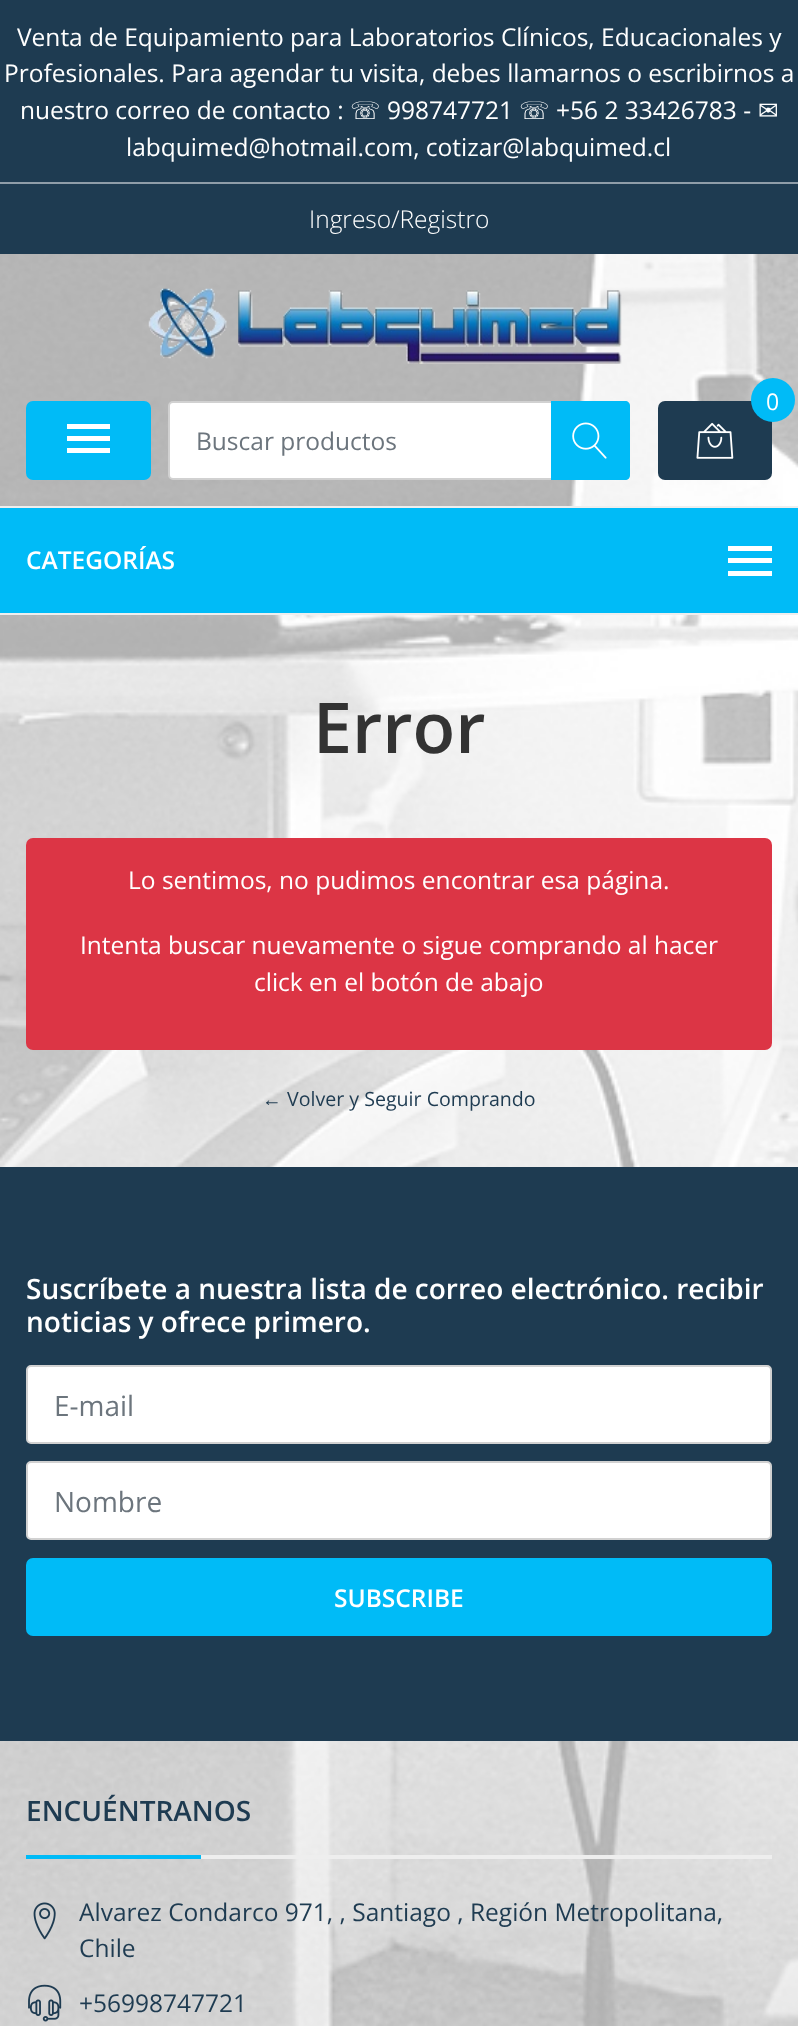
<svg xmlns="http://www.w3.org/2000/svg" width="798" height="2026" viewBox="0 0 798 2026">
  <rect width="100%" height="100%" fill="#fff"/>
  <image x="0" y="254" width="798" height="1772" href="img/1.png"/>
  <path d="M0 0h798v254H0z" fill="#1e3b51"/>
  <path d="M0 182h798v2H0z" fill="#8f9da8"/>
  <image x="148" y="288" width="474" height="76" href="img/2.png"/>
  <rect x="26" y="401" width="125" height="79" rx="7" fill="#00bbf7"/>
  <path d="M67 424h43v5H67z" fill="#fff"/>
  <path d="M67 436h43v5H67z" fill="#fff"/>
  <path d="M67 448h43v5H67z" fill="#fff"/>
  <rect x="169" y="402" width="460" height="77" rx="4" fill="#fff" stroke="#d1d1d1" stroke-width="2"/>
  <path d="M551 401H625C628 401 630 403 630 406V475C630 478 628 480 625 480H551Z" fill="#00bbf7"/>
  <image x="572" y="422" width="35" height="37" href="img/3.png"/>
  <rect x="658" y="401" width="114" height="79" rx="7" fill="#1e3b51"/>
  <image x="696" y="422" width="38" height="37" href="img/4.png"/>
  <circle cx="773" cy="400" r="22" fill="#00bbf7"/>
  <path d="M0 506h798v2H0z" fill="#eee"/>
  <path d="M0 613h798v2H0z" fill="#eee"/>
  <path d="M0 508h798v105H0z" fill="#00bbf7"/>
  <path d="M728 546h44v5H728z" fill="#fff"/>
  <path d="M728 558h44v5H728z" fill="#fff"/>
  <path d="M728 571h44v5H728z" fill="#fff"/>
  <rect x="26" y="838" width="746" height="212" rx="7" fill="#dc3545"/>
  <path d="M0 1167h798v574H0z" fill="#1e3b51"/>
  <rect x="27" y="1366" width="744" height="77" rx="4" fill="#fff" stroke="#d1d1d1" stroke-width="2"/>
  <rect x="27" y="1462" width="744" height="77" rx="4" fill="#fff" stroke="#d1d1d1" stroke-width="2"/>
  <rect x="26" y="1558" width="746" height="78" rx="7" fill="#00bbf7"/>
  <path d="M201 1855h571v4H201z" fill="#eee"/>
  <path d="M26 1855h175v4H26z" fill="#00bbf7"/>
  <image x="33" y="1902" width="23" height="38" href="img/5.png"/>
  <image x="28" y="1984" width="34" height="38" href="img/6.png"/>
  <text x="17" y="46" font-family="Open Sans" font-size="24.5" fill="#fff">Venta de Equipamiento para Laboratorios Cl</text>
  <text x="522" y="46" font-family="DejaVu Sans" font-size="24.5" fill="#fff">í</text>
  <g font-family="Open Sans" font-size="24.5" fill="#fff">
    <text x="529" y="46">nicos, Educacionales y</text>
    <text x="4" y="82">Profesionales. Para agendar tu visita, debes llamarnos o escribirnos a</text>
    <text x="20" y="119">nuestro correo de contacto :</text>
  </g>
  <text x="350" y="119" font-family="DejaVu Sans" font-size="24.5" fill="#fff">☏</text>
  <text x="387" y="119" font-family="Open Sans" font-size="24.5" fill="#fff">998747721</text>
  <text x="519" y="119" font-family="DejaVu Sans" font-size="24.5" fill="#fff">☏</text>
  <text x="556" y="119" font-family="Open Sans" font-size="24.5" fill="#fff">+56 2 33426783 -</text>
  <text x="758" y="119" font-family="DejaVu Sans" font-size="24.5" fill="#fff">✉</text>
  <text x="126" y="156" font-family="Open Sans" font-size="24.5" fill="#fff">labquimed@hotmail.com, cotizar@labquimed.cl</text>
  <text x="309" y="228" font-family="Open Sans" font-size="24.5" font-weight="300" fill="#fff">Ingreso/Registro</text>
  <text x="196" y="450" font-family="Open Sans" font-size="24.5" fill="#6c757d">Buscar productos</text>
  <text x="766" y="410" font-family="Open Sans" font-size="23" fill="#fff">0</text>
  <text x="26" y="569" font-family="Open Sans" font-size="24.5" font-weight="600" fill="#fff">CATEGORÍAS</text>
  <text x="313" y="753" font-family="Open Sans" font-size="70" font-weight="600" fill="#333">Error</text>
  <g font-family="Open Sans" font-size="24.5" fill="#fff">
    <text x="128" y="889">Lo sentimos, no pudimos encontrar esa página.</text>
    <text x="80" y="954">Intenta buscar nuevamente o sigue comprando al hacer</text>
    <text x="254" y="991">click en el botón de abajo</text>
  </g>
  <text x="262" y="1106" font-family="Liberation Sans" font-size="19.6" fill="#1e3b51">←</text>
  <text x="287" y="1106" font-family="Open Sans" font-size="19.6" fill="#1e3b51">Volver y Seguir Comprando</text>
  <g font-family="Open Sans" font-size="28" font-weight="600" fill="#fff">
    <text x="26" y="1299">Suscríbete a nuestra lista de correo electrónico. recibir</text>
    <text x="26" y="1332">noticias y ofrece primero.</text>
  </g>
  <g font-family="Open Sans" font-size="28" fill="#6c757d">
    <text x="54" y="1416">E-mail</text>
    <text x="54" y="1512">Nombre</text>
  </g>
  <text x="334" y="1607" font-family="Open Sans" font-size="24.5" font-weight="600" fill="#fff">SUBSCRIBE</text>
  <text x="26" y="1821" font-family="Open Sans" font-size="28" font-weight="600" fill="#1e3b51">ENCUÉNTRANOS</text>
  <g font-family="Open Sans" font-size="24.5" fill="#1e3b51">
    <text x="79" y="1921">Alvarez Condarco 971, , Santiago , Región Metropolitana,</text>
    <text x="79" y="1957">Chile</text>
    <text x="79" y="2012">+56998747721</text>
  </g>
</svg>
